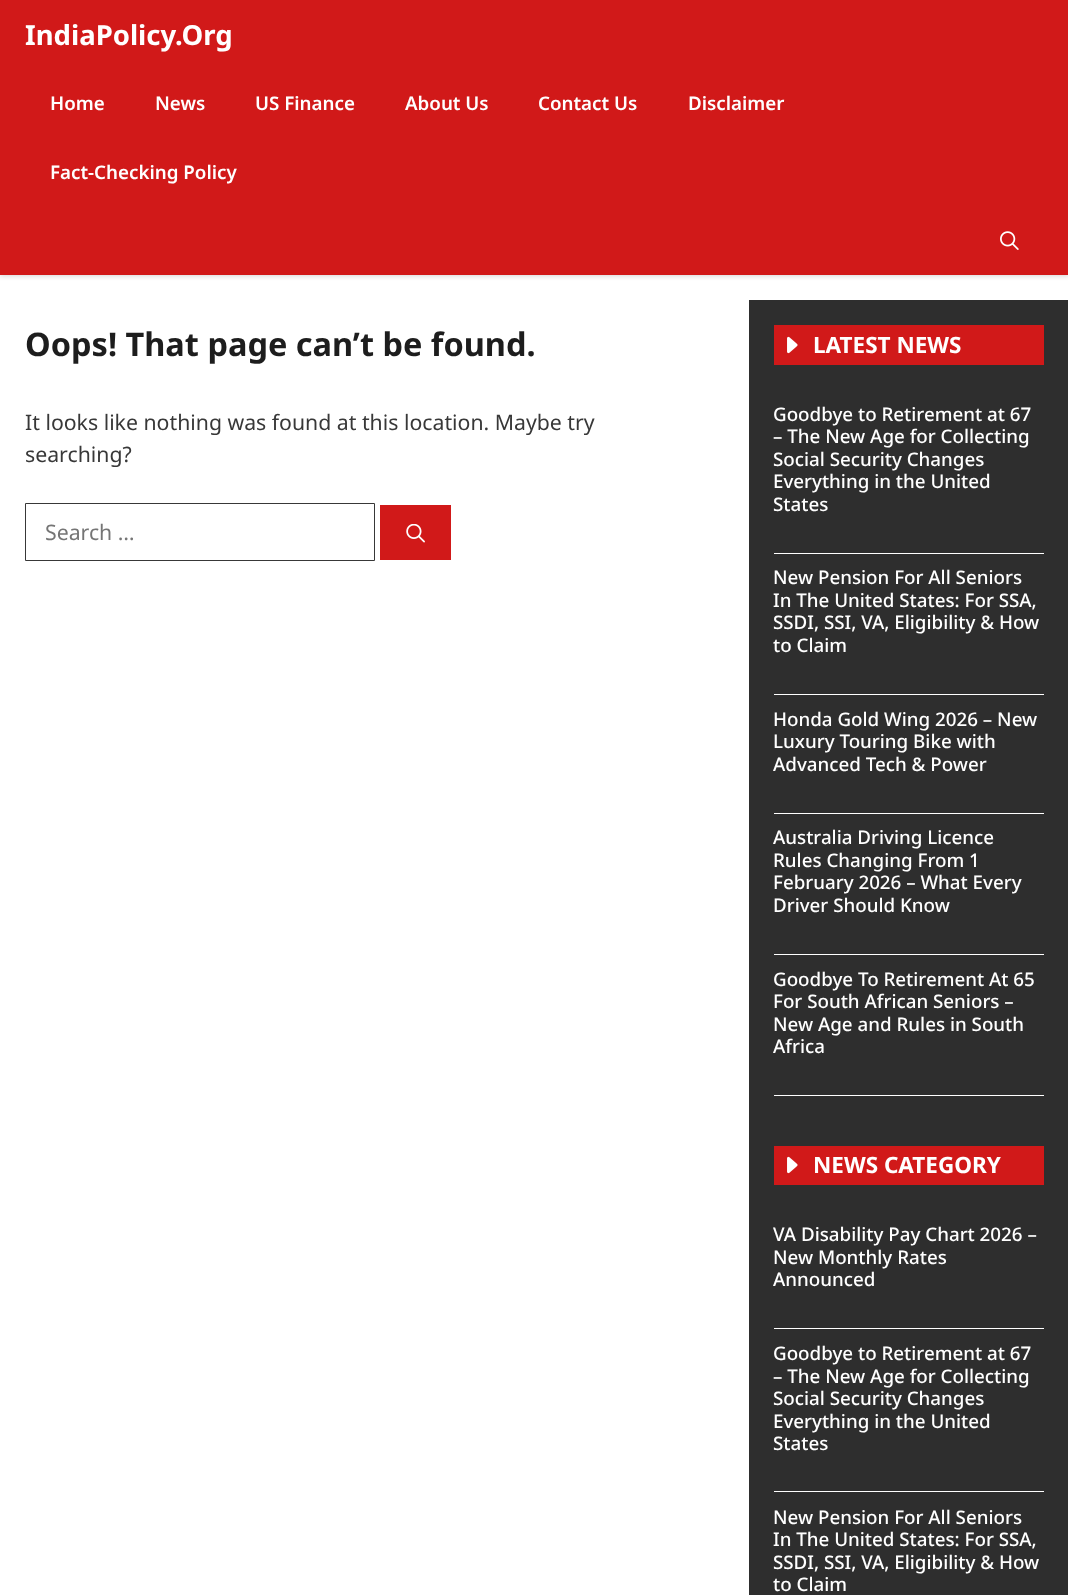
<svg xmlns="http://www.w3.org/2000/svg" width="1068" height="1595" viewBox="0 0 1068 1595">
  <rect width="100%" height="100%" fill="#fff"/>
  <path d="M0 1h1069v275H0z" fill="#00000029" filter="blur(2.5px)"/>
  <path d="M0 0h1068v275H0z" fill="#d11919"/>
  <image x="1000" y="231" width="19" height="19" href="img/1.png"/>
  <path d="M25.5 503.5h349v57H25.5z" fill="none" stroke="#383838"/>
  <path d="M380 505h71v55H380z" fill="#d11919"/>
  <image x="406" y="524" width="19" height="19" href="img/2.png"/>
  <path d="M749 300h319v1295H749z" fill="#2e2e2e"/>
  <path d="M774 325h270v40H774z" fill="#d11919"/>
  <image x="787" y="336" width="11" height="18" href="img/3.png"/>
  <path d="M774 553h270v1H774z" fill="#fff"/>
  <path d="M774 694h270v1H774z" fill="#fff"/>
  <path d="M774 813h270v1H774z" fill="#fff"/>
  <path d="M774 954h270v1H774z" fill="#fff"/>
  <path d="M774 1095h270v1H774z" fill="#fff"/>
  <path d="M774 1146h270v39H774z" fill="#d11919"/>
  <image x="787" y="1156" width="11" height="18" href="img/3.png"/>
  <path d="M774 1328h270v1H774z" fill="#fff"/>
  <path d="M774 1491h270v1H774z" fill="#fff"/>
  <text x="25" y="45" font-family="Noto Sans" font-size="27.5" font-weight="bold" fill="#fff">IndiaPolicy.Org</text>
  <g font-family="Noto Sans" font-size="18.75" font-weight="600" fill="#fff">
    <text x="50" y="110">Home</text>
    <text x="155" y="110">News</text>
    <text x="255" y="110">US Finance</text>
    <text x="405" y="110">About Us</text>
    <text x="538" y="110">Contact Us</text>
    <text x="688" y="110">Disclaimer</text>
    <text x="50" y="179">Fact-Checking Policy</text>
  </g>
  <text x="25" y="356" font-family="Noto Sans" font-size="32.5" font-weight="bold" fill="#1d1d1d">Oops! That page can’t be found.</text>
  <g font-family="Noto Sans" font-size="21.25" fill="#383838">
    <text x="25" y="430">It looks like nothing was found at this location. Maybe try</text>
    <text x="25" y="462">searching?</text>
  </g>
  <text x="45" y="540" font-family="Noto Sans" font-size="21.25" fill="#757575">Search …</text>
  <text x="813" y="353" font-family="Noto Sans" font-size="22.5" font-weight="bold" fill="#fff">LATEST NEWS</text>
  <g font-family="Noto Sans" font-size="18.75" font-weight="500" fill="#fff">
    <text x="773" y="421">Goodbye to Retirement at 67</text>
    <text x="773" y="443">– The New Age for Collecting</text>
    <text x="773" y="466">Social Security Changes</text>
    <text x="773" y="488">Everything in the United</text>
    <text x="773" y="511">States</text>
    <text x="773" y="584">New Pension For All Seniors</text>
    <text x="773" y="607">In The United States: For SSA,</text>
    <text x="773" y="629">SSDI, SSI, VA, Eligibility &amp; How</text>
    <text x="773" y="652">to Claim</text>
    <text x="773" y="726">Honda Gold Wing 2026 – New</text>
    <text x="773" y="748">Luxury Touring Bike with</text>
    <text x="773" y="771">Advanced Tech &amp; Power</text>
    <text x="773" y="844">Australia Driving Licence</text>
    <text x="773" y="867">Rules Changing From 1</text>
    <text x="773" y="889">February 2026 – What Every</text>
    <text x="773" y="912">Driver Should Know</text>
    <text x="773" y="986">Goodbye To Retirement At 65</text>
    <text x="773" y="1008">For South African Seniors –</text>
    <text x="773" y="1031">New Age and Rules in South</text>
    <text x="773" y="1053">Africa</text>
  </g>
  <text x="813" y="1173" font-family="Noto Sans" font-size="22.5" font-weight="bold" fill="#fff">NEWS CATEGORY</text>
  <g font-family="Noto Sans" font-size="18.75" font-weight="500" fill="#fff">
    <text x="773" y="1241">VA Disability Pay Chart 2026 –</text>
    <text x="773" y="1264">New Monthly Rates</text>
    <text x="773" y="1286">Announced</text>
    <text x="773" y="1360">Goodbye to Retirement at 67</text>
    <text x="773" y="1383">– The New Age for Collecting</text>
    <text x="773" y="1405">Social Security Changes</text>
    <text x="773" y="1428">Everything in the United</text>
    <text x="773" y="1450">States</text>
    <text x="773" y="1524">New Pension For All Seniors</text>
    <text x="773" y="1546">In The United States: For SSA,</text>
    <text x="773" y="1569">SSDI, SSI, VA, Eligibility &amp; How</text>
    <text x="773" y="1591">to Claim</text>
  </g>
</svg>
